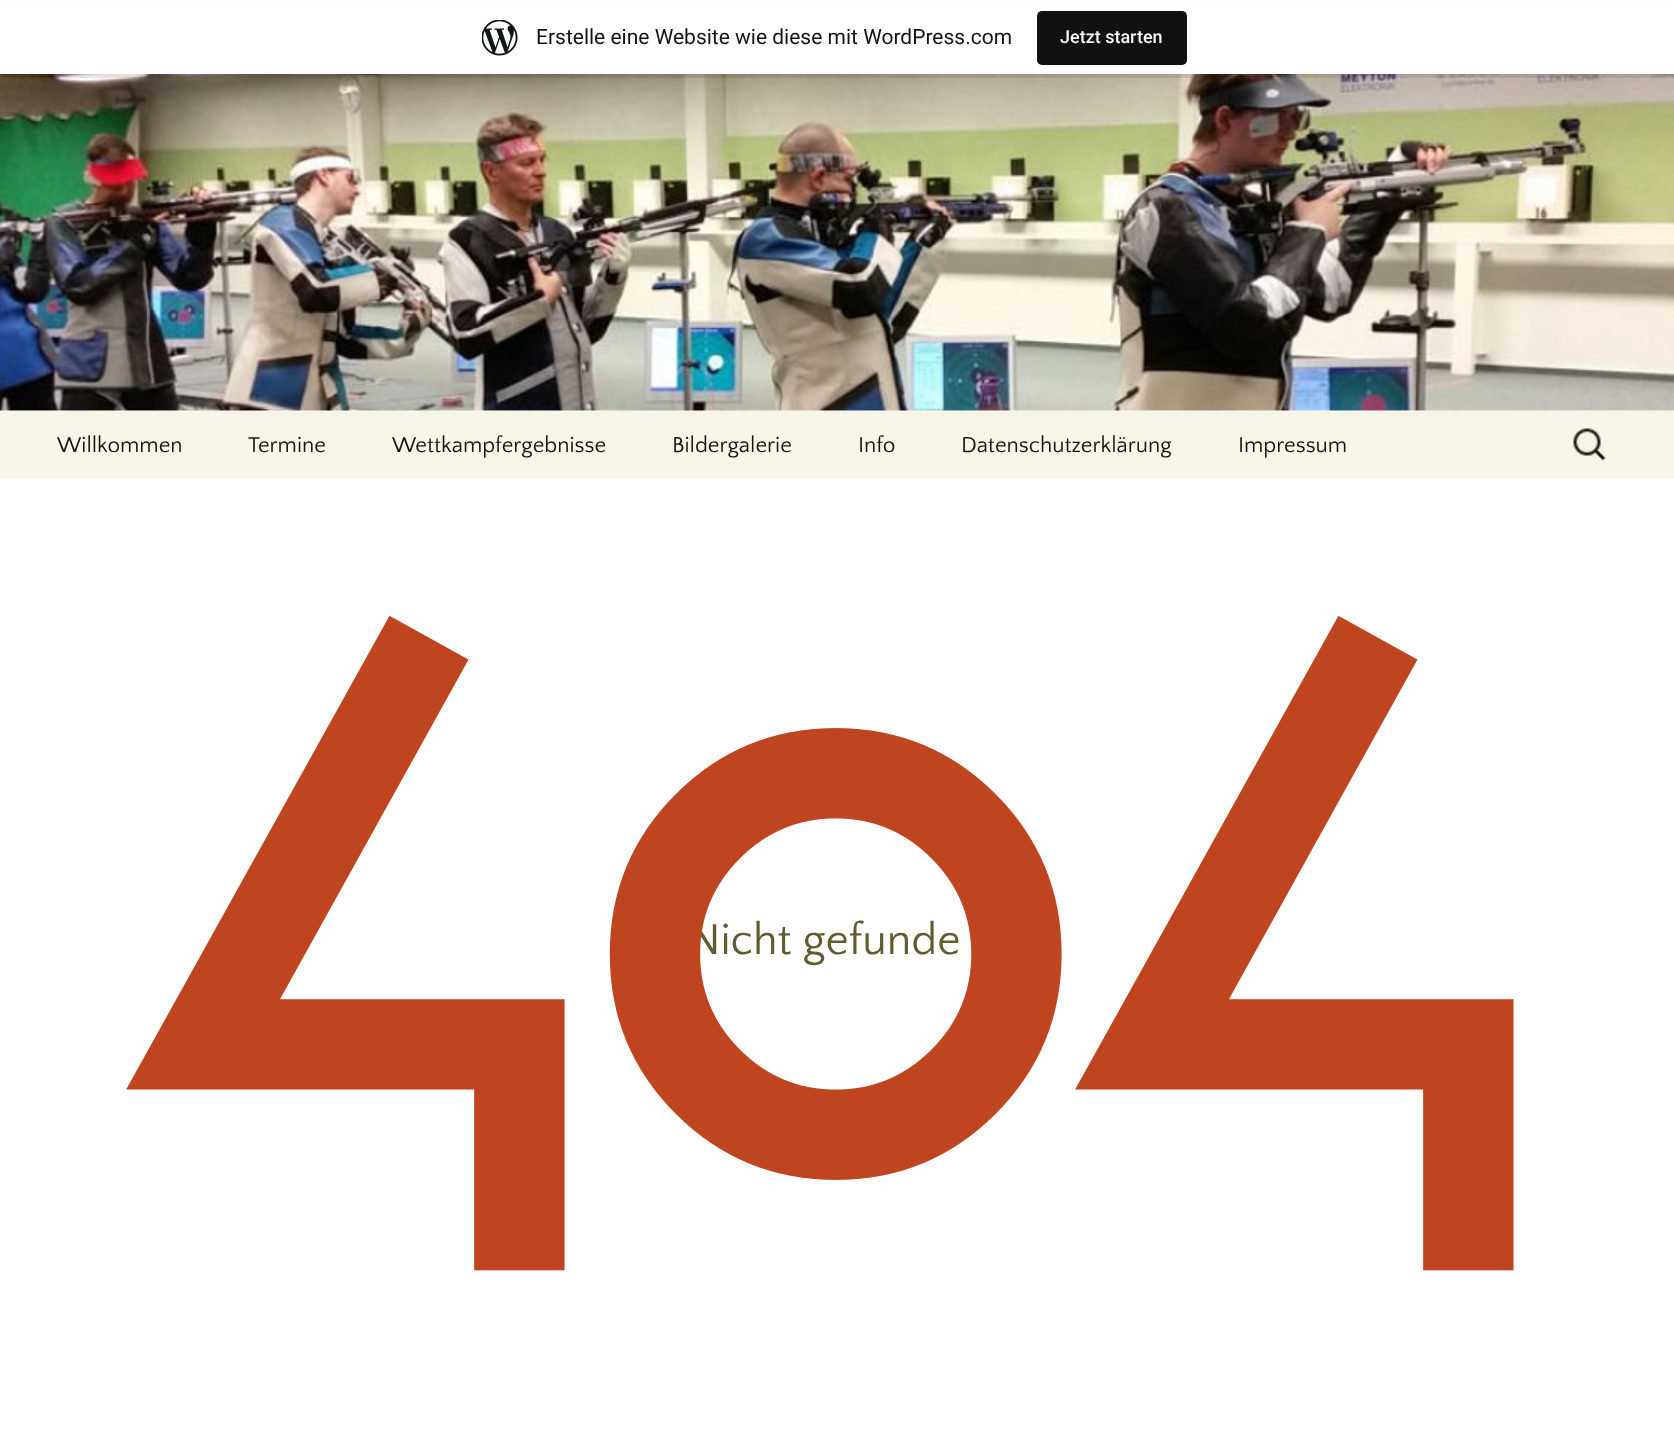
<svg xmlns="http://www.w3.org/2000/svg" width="1674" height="1441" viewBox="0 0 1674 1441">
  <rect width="100%" height="100%" fill="#fff"/>
  <image x="0" y="74" width="1674" height="337" href="img/2.png"/>
  <path d="M0 2h1674v73H0z" fill="#0000000d" filter="blur(1.5px)"/>
  <path d="M2 74V78H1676V5H1674V74Z" fill="#00000014"/>
  <path d="M0 1h1674v73H0z" fill="#fff"/>
  <image x="482" y="20" width="36" height="36" href="img/1.png"/>
  <rect x="1037" y="11" width="150" height="54" rx="5" fill="#111"/>
  <path d="M0 411h1674v68H0z" fill="#f7f5e7"/>
  <image x="1573" y="428" width="33" height="33" href="img/3.png"/>
  <text x="536" y="44" font-family="Roboto" font-size="21" fill="#141414">Erstelle eine Website wie diese mit WordPress.com</text>
  <text x="1060" y="43" font-family="Roboto" font-size="18" font-weight="500" fill="#f6f7f7">Jetzt starten</text>
  <g font-family="Quattrocento Sans" font-size="22.5" fill="#141414">
    <text x="57" y="452">Willkommen</text>
    <text x="248" y="452">Termine</text>
    <text x="392" y="452">Wettkampfergebnisse</text>
    <text x="672" y="452">Bildergalerie</text>
    <text x="858" y="452">Info</text>
    <text x="961" y="452">Datenschutzerklärung</text>
    <text x="1238" y="452">Impressum</text>
  </g>
  <text x="689" y="954" font-family="Quattrocento Sans" font-size="45" fill="#635b30">Nicht gefunde</text>
  <image x="126" y="615" width="1388" height="656" href="img/4.png"/>
</svg>
